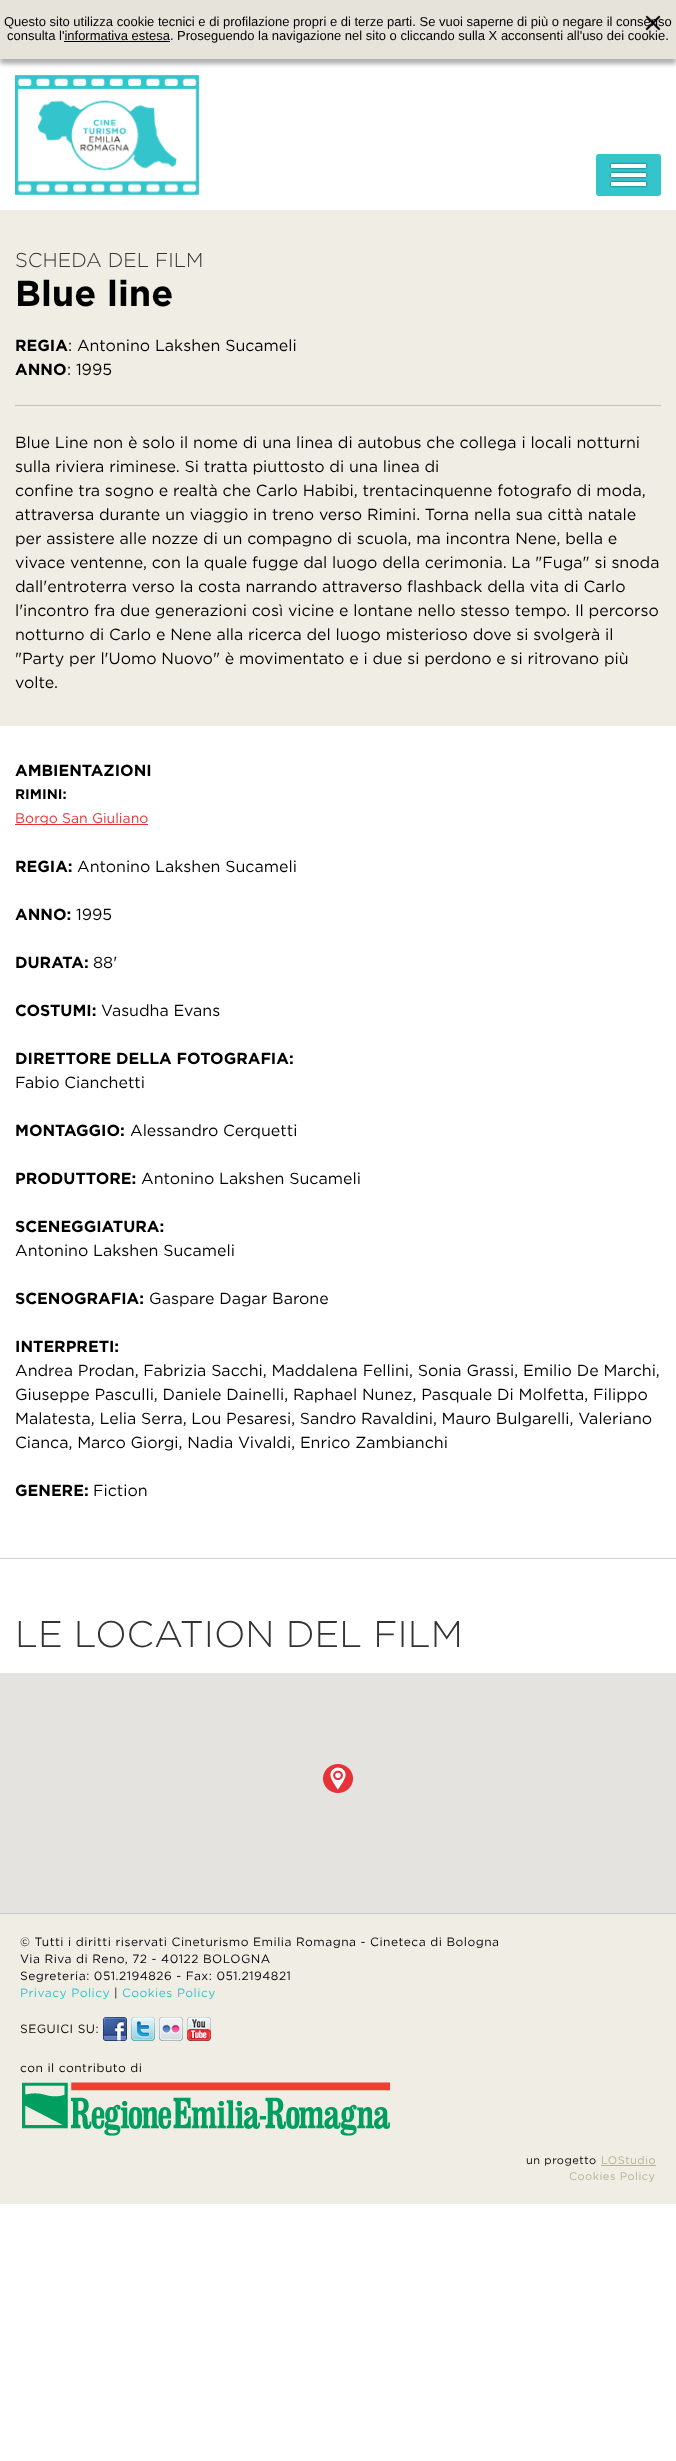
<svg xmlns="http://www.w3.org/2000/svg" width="676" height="2461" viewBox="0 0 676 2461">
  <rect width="100%" height="100%" fill="#fff"/>
  <path d="M0 5h676v59H0z" fill="#0000004d" filter="blur(2px)"/>
  <path d="M0 0h676v59H0z" fill="#e5e3da"/>
  <path d="M64 41h106v1H64z" fill="#000"/>
  <image x="15" y="75" width="184" height="120" href="img/2.png"/>
  <rect x="596" y="154" width="65" height="42" rx="3" fill="#33c4cc"/>
  <path d="M611 164h35v4H611z" fill="#00000099" filter="blur(1px)"/>
  <path d="M611 164h35v4H611z" fill="#fff"/>
  <path d="M611 173h35v4H611z" fill="#00000099" filter="blur(1px)"/>
  <path d="M611 173h35v4H611z" fill="#fff"/>
  <path d="M611 182h35v4H611z" fill="#00000099" filter="blur(1px)"/>
  <path d="M611 182h35v4H611z" fill="#fff"/>
  <path d="M0 210h676v516H0z" fill="#efede4"/>
  <path d="M15 405h646v1H15z" fill="#c3c2bb"/>
  <path d="M0 1558h676v1H0z" fill="#cfcfcf"/>
  <path d="M15 824h133v1H15z" fill="#e73338"/>
  <path d="M0 1673h676v240H0z" fill="#e5e3df"/>
  <image x="323" y="1764" width="30" height="29" href="img/3.png"/>
  <path d="M0 1914h676v290H0z" fill="#efede4"/>
  <path d="M0 1913h676v1H0z" fill="#ccc"/>
  <image x="103" y="2017" width="24" height="24" href="img/4.png"/>
  <image x="131" y="2017" width="24" height="24" href="img/5.png"/>
  <image x="159" y="2017" width="24" height="24" href="img/6.png"/>
  <image x="187" y="2017" width="24" height="24" href="img/7.png"/>
  <image x="22" y="2082" width="368" height="54" href="img/8.png"/>
  <path d="M601 2165h55v1H601z" fill="#b8b193"/>
  <g font-family="Liberation Sans" font-size="13" fill="#000">
    <text x="4" y="26">Questo sito utilizza cookie tecnici e di profilazione propri e di terze parti. Se vuoi saperne di più o negare il consenso</text>
    <text x="7" y="40">consulta l'informativa estesa. Proseguendo la navigazione nel sito o cliccando sulla X acconsenti all'uso dei cookie.</text>
  </g>
  <image x="645" y="15" width="16" height="16" href="img/1.png"/>
  <text x="15" y="267" font-family="Gotham" font-size="20" font-weight="300" fill="#333">SCHEDA DEL FILM</text>
  <text x="15" y="306" font-family="Gotham" font-size="36" font-weight="bold" fill="#000">Blue line</text>
  <text x="15" y="351" font-family="Gotham" font-size="16" font-weight="bold" fill="#000">REGIA</text>
  <text x="68" y="351" font-family="Gotham" font-size="16" fill="#000">: Antonino Lakshen Sucameli</text>
  <text x="15" y="375" font-family="Gotham" font-size="16" font-weight="bold" fill="#000">ANNO</text>
  <g font-family="Gotham" font-size="16" fill="#000">
    <text x="67" y="375">: 1995</text>
    <text x="15" y="448">Blue Line non è solo il nome di una linea di autobus che collega i locali notturni</text>
    <text x="15" y="472">sulla riviera riminese. Si tratta piuttosto di una linea di</text>
    <text x="15" y="496">confine tra sogno e realtà che Carlo Habibi, trentacinquenne fotografo di moda,</text>
    <text x="15" y="520">attraversa durante un viaggio in treno verso Rimini. Torna nella sua città natale</text>
    <text x="15" y="544">per assistere alle nozze di un compagno di scuola, ma incontra Nene, bella e</text>
    <text x="15" y="568">vivace ventenne, con la quale fugge dal luogo della cerimonia. La "Fuga" si snoda</text>
    <text x="15" y="592">dall'entroterra verso la costa narrando attraverso flashback della vita di Carlo</text>
    <text x="15" y="616">l'incontro fra due generazioni così vicine e lontane nello stesso tempo. Il percorso</text>
    <text x="15" y="640">notturno di Carlo e Nene alla ricerca del luogo misterioso dove si svolgerà il</text>
    <text x="15" y="664">"Party per l'Uomo Nuovo" è movimentato e i due si perdono e si ritrovano più</text>
    <text x="15" y="688">volte.</text>
  </g>
  <text x="15" y="776" font-family="Gotham" font-size="16" font-weight="bold" fill="#000">AMBIENTAZIONI</text>
  <text x="15" y="799" font-family="Gotham" font-size="14" font-weight="bold" fill="#000">RIMINI:</text>
  <text x="15" y="823" font-family="Gotham" font-size="14" fill="#e73338">Borgo San Giuliano</text>
  <text x="15" y="872" font-family="Gotham" font-size="16" font-weight="bold" fill="#000">REGIA:</text>
  <text x="77" y="872" font-family="Gotham" font-size="16" fill="#000">Antonino Lakshen Sucameli</text>
  <text x="15" y="920" font-family="Gotham" font-size="16" font-weight="bold" fill="#000">ANNO:</text>
  <text x="76" y="920" font-family="Gotham" font-size="16" fill="#000">1995</text>
  <text x="15" y="968" font-family="Gotham" font-size="16" font-weight="bold" fill="#000">DURATA:</text>
  <text x="93" y="968" font-family="Gotham" font-size="16" fill="#000">88'</text>
  <text x="15" y="1016" font-family="Gotham" font-size="16" font-weight="bold" fill="#000">COSTUMI:</text>
  <text x="101" y="1016" font-family="Gotham" font-size="16" fill="#000">Vasudha Evans</text>
  <text x="15" y="1064" font-family="Gotham" font-size="16" font-weight="bold" fill="#000">DIRETTORE DELLA FOTOGRAFIA:</text>
  <text x="15" y="1088" font-family="Gotham" font-size="16" fill="#000">Fabio Cianchetti</text>
  <text x="15" y="1136" font-family="Gotham" font-size="16" font-weight="bold" fill="#000">MONTAGGIO:</text>
  <text x="130" y="1136" font-family="Gotham" font-size="16" fill="#000">Alessandro Cerquetti</text>
  <text x="15" y="1184" font-family="Gotham" font-size="16" font-weight="bold" fill="#000">PRODUTTORE:</text>
  <text x="141" y="1184" font-family="Gotham" font-size="16" fill="#000">Antonino Lakshen Sucameli</text>
  <text x="15" y="1232" font-family="Gotham" font-size="16" font-weight="bold" fill="#000">SCENEGGIATURA:</text>
  <text x="15" y="1256" font-family="Gotham" font-size="16" fill="#000">Antonino Lakshen Sucameli</text>
  <text x="15" y="1304" font-family="Gotham" font-size="16" font-weight="bold" fill="#000">SCENOGRAFIA:</text>
  <text x="149" y="1304" font-family="Gotham" font-size="16" fill="#000">Gaspare Dagar Barone</text>
  <text x="15" y="1352" font-family="Gotham" font-size="16" font-weight="bold" fill="#000">INTERPRETI:</text>
  <g font-family="Gotham" font-size="16" fill="#000">
    <text x="15" y="1376">Andrea Prodan, Fabrizia Sacchi, Maddalena Fellini, Sonia Grassi, Emilio De Marchi,</text>
    <text x="15" y="1400">Giuseppe Pasculli, Daniele Dainelli, Raphael Nunez, Pasquale Di Molfetta, Filippo</text>
    <text x="15" y="1424">Malatesta, Lelia Serra, Lou Pesaresi, Sandro Ravaldini, Mauro Bulgarelli, Valeriano</text>
    <text x="15" y="1448">Cianca, Marco Giorgi, Nadia Vivaldi, Enrico Zambianchi</text>
  </g>
  <text x="15" y="1496" font-family="Gotham" font-size="16" font-weight="bold" fill="#000">GENERE:</text>
  <text x="93" y="1496" font-family="Gotham" font-size="16" fill="#000">Fiction</text>
  <text x="15" y="1647" font-family="Gotham" font-size="37" font-weight="300" fill="#333">LE LOCATION DEL FILM</text>
  <g font-family="Gotham" font-size="12" letter-spacing="0.5" fill="#000">
    <text x="20" y="1946">© Tutti i diritti riservati Cineturismo Emilia Romagna - Cineteca di Bologna</text>
    <text x="20" y="1963">Via Riva di Reno, 72 - 40122 BOLOGNA</text>
    <text x="20" y="1980">Segreteria: 051.2194826 - Fax: 051.2194821</text>
  </g>
  <text x="20" y="1997" font-family="Gotham" font-size="12" letter-spacing="0.5" fill="#33c4cc">Privacy Policy</text>
  <text x="114" y="1997" font-family="Gotham" font-size="12" letter-spacing="0.5" fill="#000">|</text>
  <text x="122" y="1997" font-family="Gotham" font-size="12" letter-spacing="0.5" fill="#33c4cc">Cookies Policy</text>
  <g font-family="Gotham" font-size="12" letter-spacing="0.5" fill="#000">
    <text x="20" y="2033">SEGUICI SU:</text>
    <text x="20" y="2072">con il contributo di</text>
  </g>
  <text x="526" y="2164" font-family="Gotham" font-size="11" letter-spacing="0.5" fill="#000">un progetto</text>
  <g font-family="Gotham" font-size="11" letter-spacing="0.5" fill="#b8b193">
    <text x="601" y="2164">LOStudio</text>
    <text x="569" y="2180">Cookies Policy</text>
  </g>
</svg>
